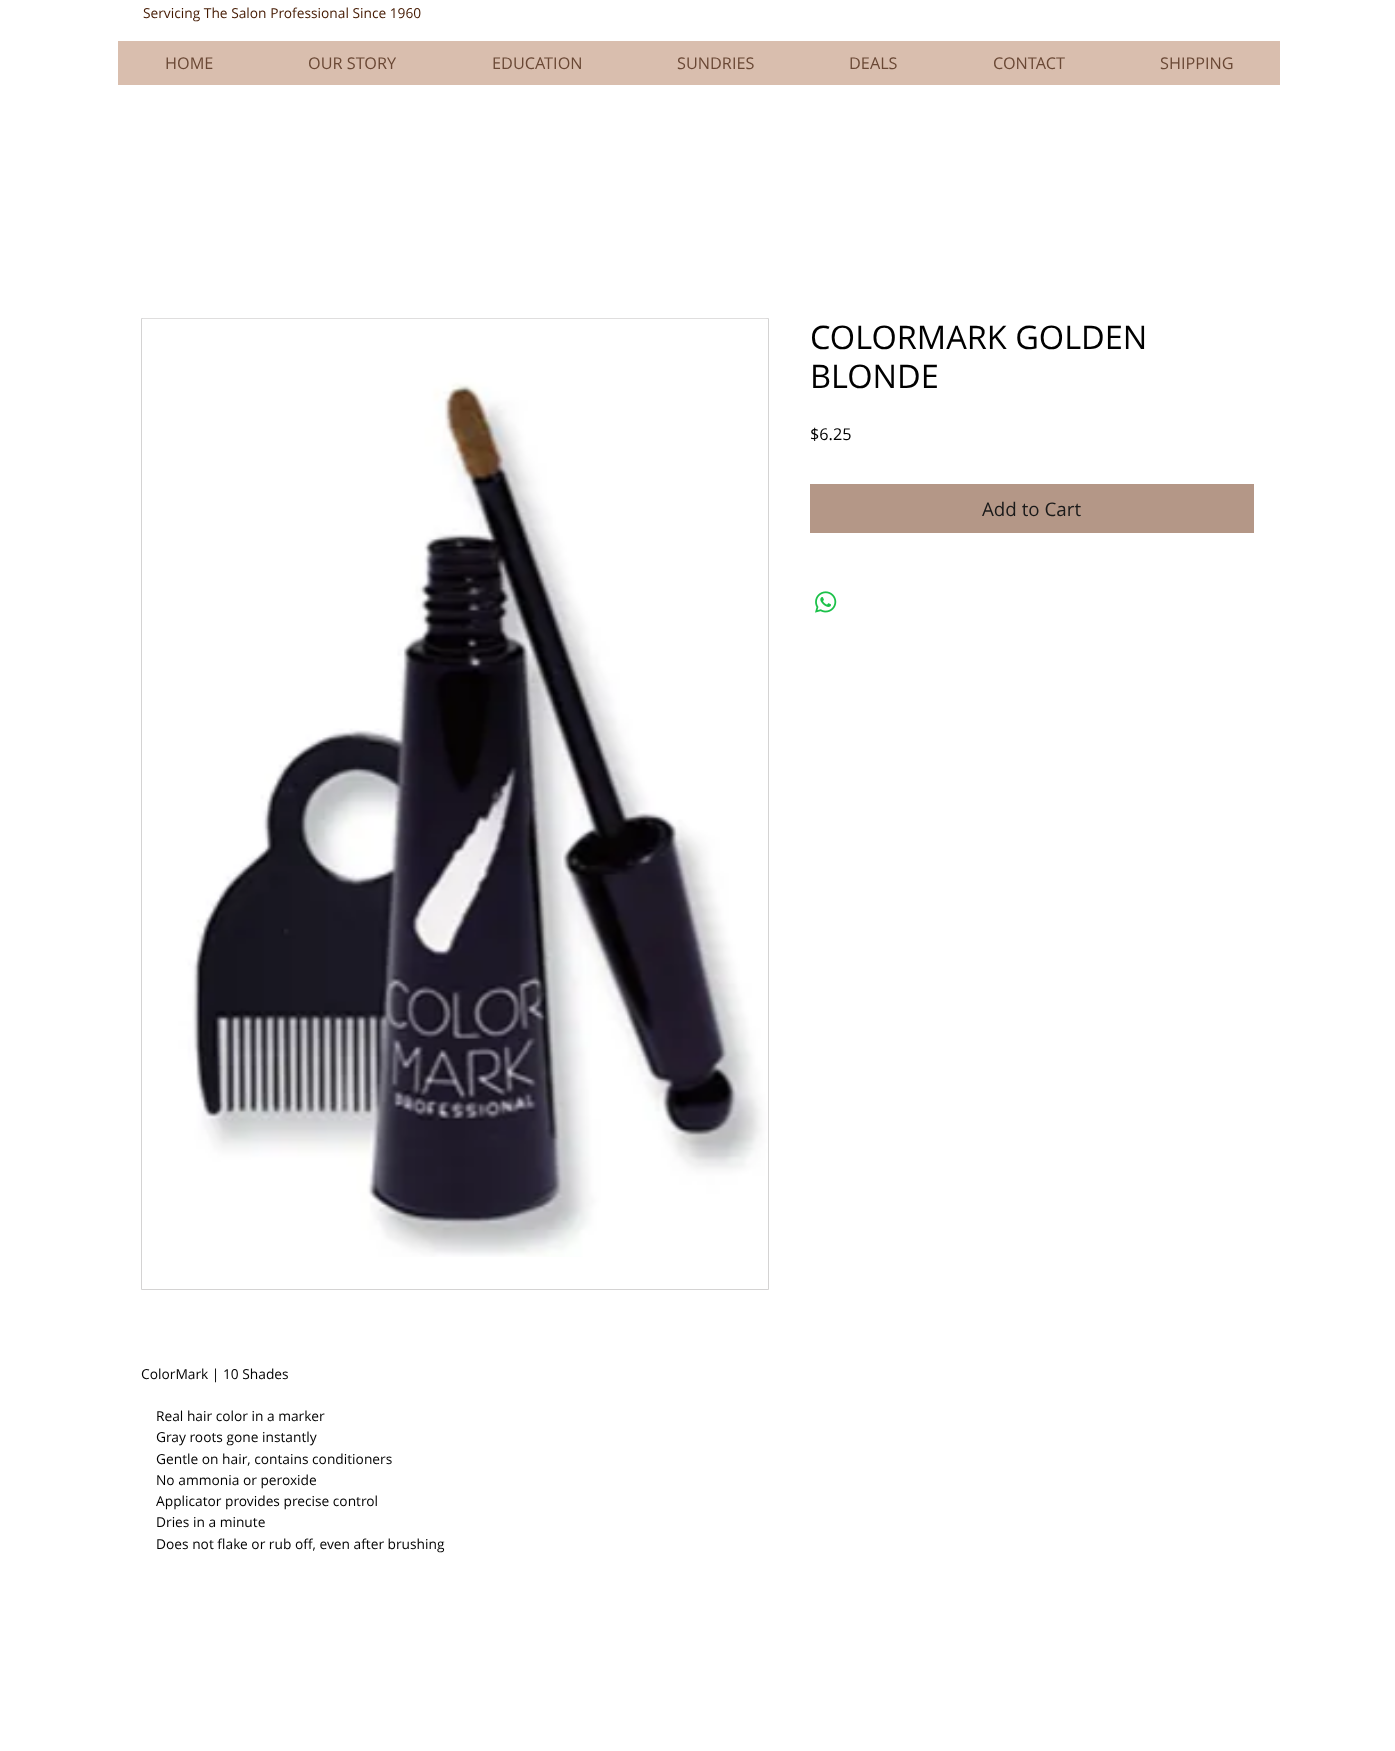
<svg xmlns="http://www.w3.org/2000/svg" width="1395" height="1751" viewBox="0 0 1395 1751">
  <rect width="100%" height="100%" fill="#fff"/>
  <path d="M118 41h1162v44H118z" fill="#d9beae"/>
  <path d="M810 484h444v49H810z" fill="#b49787"/>
  <image x="815" y="591" width="22" height="22" href="img/1.png"/>
  <path d="M141.5 318.5h627v971H141.5z" fill="none" stroke="#d4d3d3"/>
  <image x="142" y="318" width="626" height="939" href="img/2.png"/>
  <text x="143" y="18" font-family="Open Sans" font-size="13.75" fill="#441900">Servicing The Salon Professional Since 1960</text>
  <g font-family="Open Sans" font-size="16.25" fill="#6a4835">
    <text x="165" y="69">HOME</text>
    <text x="308" y="69">OUR STORY</text>
    <text x="492" y="69">EDUCATION</text>
    <text x="677" y="69">SUNDRIES</text>
    <text x="849" y="69">DEALS</text>
    <text x="993" y="69">CONTACT</text>
    <text x="1160" y="69">SHIPPING</text>
  </g>
  <g font-family="Open Sans" font-size="32.5" fill="#000">
    <text x="810" y="349">COLORMARK GOLDEN</text>
    <text x="810" y="388">BLONDE</text>
  </g>
  <text x="810" y="440" font-family="Open Sans" font-size="16.25" fill="#000">$6.25</text>
  <text x="982" y="516" font-family="Open Sans" font-size="18.75" fill="#1a1a1a">Add to Cart</text>
  <g font-family="Open Sans" font-size="13.75" fill="#000">
    <text x="141" y="1379">ColorMark | 10 Shades</text>
    <text x="156" y="1421">Real hair color in a marker</text>
    <text x="156" y="1442">Gray roots gone instantly</text>
    <text x="156" y="1464">Gentle on hair, contains conditioners</text>
    <text x="156" y="1485">No ammonia or peroxide</text>
    <text x="156" y="1506">Applicator provides precise control</text>
    <text x="156" y="1527">Dries in a minute</text>
    <text x="156" y="1549">Does not flake or rub off, even after brushing</text>
  </g>
</svg>
